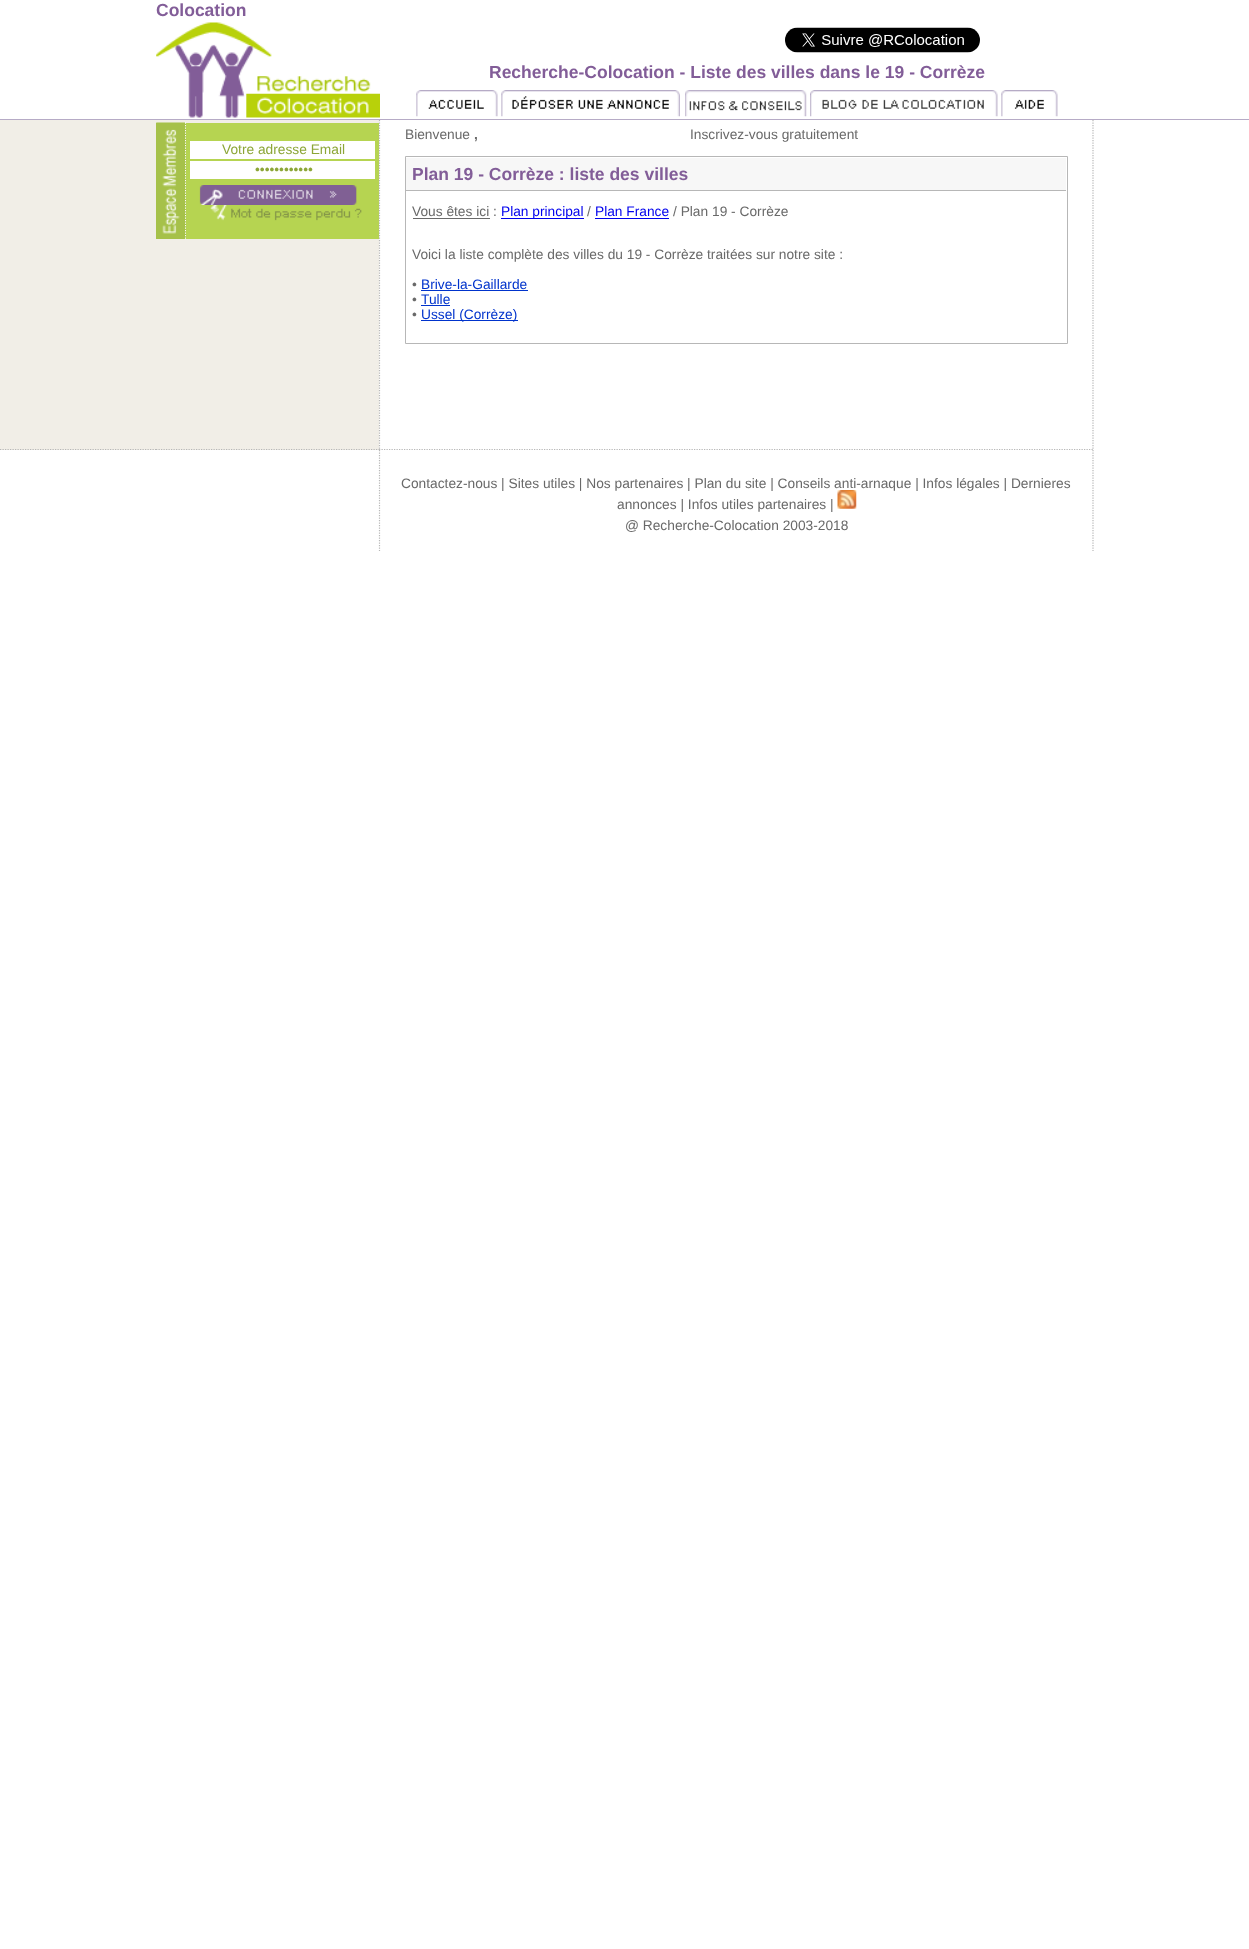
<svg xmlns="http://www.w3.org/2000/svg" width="1249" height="1949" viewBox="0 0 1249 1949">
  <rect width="100%" height="100%" fill="#fff"/>
  <image x="156" y="22" width="224" height="96" href="img/1.png"/>
  <image x="785" y="27" width="195" height="26" href="img/2.png"/>
  <image x="416" y="90" width="82" height="27" href="img/3.png"/>
  <image x="501" y="90" width="179" height="27" href="img/4.png"/>
  <image x="685" y="90" width="122" height="27" href="img/5.png"/>
  <image x="810" y="90" width="188" height="27" href="img/6.png"/>
  <image x="1001" y="90" width="57" height="27" href="img/7.png"/>
  <path d="M0 119h1249v1H0z" fill="#b6abc6"/>
  <path d="M0 120h379v330H0z" fill="#f1eee7"/>
  <path d="M0 449.5H156" fill="none" stroke="#b7b7b7" stroke-width="1.2" stroke-dasharray="1.25 1.25"/>
  <path d="M156 449.5H379" fill="none" stroke="#b7b7b7" stroke-width="1.2" stroke-dasharray="1.25 1.25"/>
  <path d="M156 123h30v116H156z" fill="#a6c14a"/>
  <path d="M185.5 122.5V239" fill="none" stroke="#fff" stroke-width="1.2" stroke-dasharray="1.25 1.25"/>
  <image x="156" y="122" width="29" height="117" href="img/8.png"/>
  <path d="M186 123h193v116H186z" fill="#b6d451"/>
  <path d="M190 141h185v18H190z" fill="#fff"/>
  <path d="M190 161h185v18H190z" fill="#fff"/>
  <image x="199" y="185" width="158" height="20" href="img/9.png"/>
  <image x="210" y="205" width="152" height="16" href="img/10.png"/>
  <path d="M1093 120V450" fill="none" stroke="#b7b7b7" stroke-width="1.2" stroke-dasharray="1.25 1.25"/>
  <path d="M379 449.5H1094" fill="none" stroke="#b7b7b7" stroke-width="1.2" stroke-dasharray="1.25 1.25"/>
  <path d="M379.5 120V450" fill="none" stroke="#b7b7b7" stroke-width="1.2" stroke-dasharray="1.25 1.25"/>
  <path d="M405.5 156.5h662v187H405.5z" fill="none" stroke="#b7b7b7"/>
  <path d="M406 158h660v32H406z" fill="#f7f7f7"/>
  <path d="M406 190h660v1H406z" fill="#b7b7b7"/>
  <path d="M413 218h77v1H413z" fill="#696969"/>
  <path d="M501 218h83v1H501z" fill="#00e"/>
  <path d="M595 218h74v1H595z" fill="#00e"/>
  <path d="M421 290h107v1H421z" fill="#03c"/>
  <path d="M421 305h29v1H421z" fill="#03c"/>
  <path d="M421 320h97v1H421z" fill="#03c"/>
  <path d="M379.5 450V551" fill="none" stroke="#b7b7b7" stroke-width="1.2" stroke-dasharray="1.25 1.25"/>
  <path d="M1093 450V551" fill="none" stroke="#b7b7b7" stroke-width="1.2" stroke-dasharray="1.25 1.25"/>
  <g font-family="Liberation Sans" font-size="17.5" font-weight="bold" fill="#825d98">
    <text x="156" y="16">Colocation</text>
    <text x="489" y="78">Recherche-Colocation - Liste des villes dans le 19 - Corrèze</text>
  </g>
  <g font-family="Liberation Sans" font-size="13.75" fill="#8ca637">
    <text x="222" y="154">Votre adresse Email</text>
    <text x="255" y="174">••••••••••••</text>
  </g>
  <text x="405" y="139" font-family="Liberation Sans" font-size="13.75" fill="#696969">Bienvenue</text>
  <text x="474" y="139" font-family="Liberation Sans" font-size="13.75" font-weight="bold" fill="#696969">,</text>
  <text x="690" y="139" font-family="Liberation Sans" font-size="13.75" fill="#696969">Inscrivez-vous gratuitement</text>
  <text x="412" y="180" font-family="Liberation Sans" font-size="17.5" font-weight="bold" fill="#825d98">Plan 19 - Corrèze : liste des villes</text>
  <text x="412" y="216" font-family="Liberation Sans" font-size="13.75" fill="#696969">Vous êtes ici :</text>
  <text x="501" y="216" font-family="Liberation Sans" font-size="13.75" fill="#00e">Plan principal</text>
  <text x="587" y="216" font-family="Liberation Sans" font-size="13.75" fill="#696969">/</text>
  <text x="595" y="216" font-family="Liberation Sans" font-size="13.75" fill="#00e">Plan France</text>
  <g font-family="Liberation Sans" font-size="13.75" fill="#696969">
    <text x="673" y="216">/ Plan 19 - Corrèze</text>
    <text x="412" y="259">Voici la liste complète des villes du 19 - Corrèze traitées sur notre site :</text>
    <text x="412" y="289">•</text>
  </g>
  <text x="421" y="289" font-family="Liberation Sans" font-size="13.75" fill="#03c">Brive-la-Gaillarde</text>
  <text x="412" y="304" font-family="Liberation Sans" font-size="13.75" fill="#696969">•</text>
  <text x="421" y="304" font-family="Liberation Sans" font-size="13.75" fill="#03c">Tulle</text>
  <text x="412" y="319" font-family="Liberation Sans" font-size="13.75" fill="#696969">•</text>
  <text x="421" y="319" font-family="Liberation Sans" font-size="13.75" fill="#03c">Ussel (Corrèze)</text>
  <g font-family="Liberation Sans" font-size="13.75" fill="#696969">
    <text x="401" y="488">Contactez-nous | Sites utiles | Nos partenaires | Plan du site | Conseils anti-arnaque | Infos légales | Dernieres</text>
    <text x="617" y="509">annonces | Infos utiles partenaires |</text>
  </g>
  <image x="837" y="490" width="20" height="19" href="img/11.png"/>
  <text x="625" y="530" font-family="Liberation Sans" font-size="13.75" fill="#696969">@ Recherche-Colocation 2003-2018</text>
</svg>
